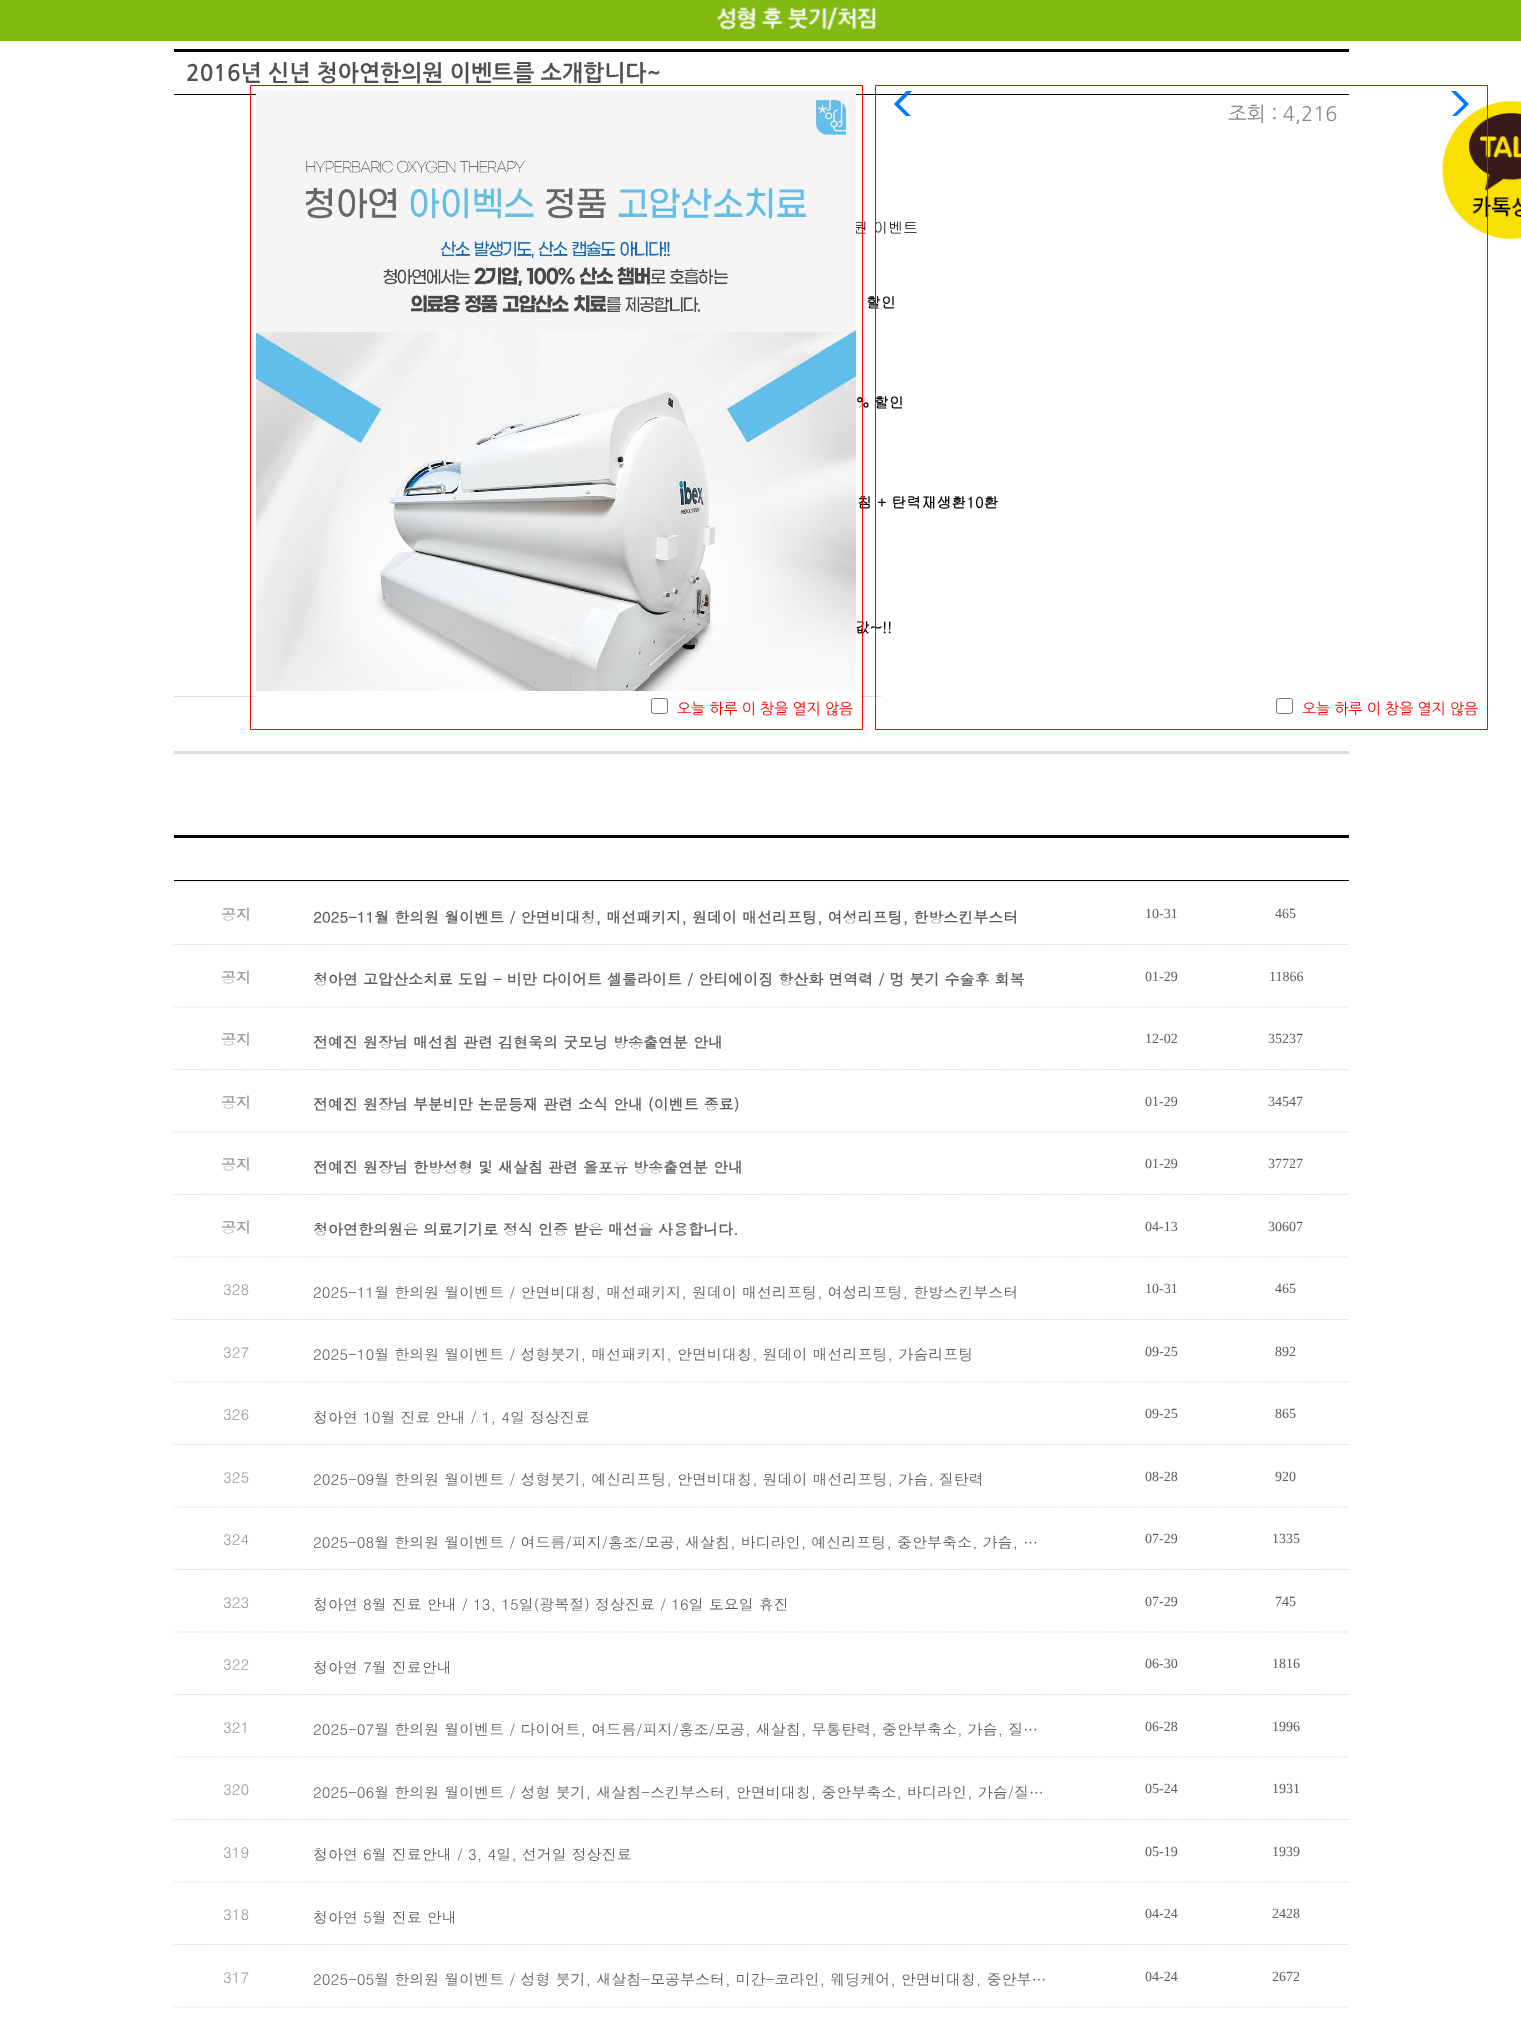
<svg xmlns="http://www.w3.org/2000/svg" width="1521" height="2021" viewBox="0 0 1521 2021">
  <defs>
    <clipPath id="clip1"><path d="M894 91h34v25H894z"/></clipPath>
    <clipPath id="clip2"><path d="M1435 91h34v25H1435z"/></clipPath>
  </defs>
  <rect width="100%" height="100%" fill="#fff"/>
  <path d="M0 0h1521v41H0z" fill="#82b913"/>
  <image x="716" y="6" width="160" height="24" href="img/1.png"/>
  <path d="M174 49h1175v3H174z" fill="#000"/>
  <path d="M174 94h1175v1H174z" fill="#000"/>
  <path d="M174 696h707v1H174z" fill="#ddd"/>
  <path d="M174 751h1175v3H174z" fill="#dedede"/>
  <path d="M174 835h1175v3H174z" fill="#000"/>
  <path d="M174 880h1175v1H174z" fill="#000"/>
  <path d="M174 882H299" fill="none" stroke="#d6d6d6" stroke-width="1.2" stroke-dasharray="1.25 1.25"/>
  <path d="M299 882H1099" fill="none" stroke="#d6d6d6" stroke-width="1.2" stroke-dasharray="1.25 1.25"/>
  <path d="M1099 882H1224" fill="none" stroke="#d6d6d6" stroke-width="1.2" stroke-dasharray="1.25 1.25"/>
  <path d="M1224 882H1349" fill="none" stroke="#d6d6d6" stroke-width="1.2" stroke-dasharray="1.25 1.25"/>
  <path d="M174 944.5H299" fill="none" stroke="#d6d6d6" stroke-width="1.2" stroke-dasharray="1.25 1.25"/>
  <path d="M299 944.5H1099" fill="none" stroke="#d6d6d6" stroke-width="1.2" stroke-dasharray="1.25 1.25"/>
  <path d="M1099 944.5H1224" fill="none" stroke="#d6d6d6" stroke-width="1.2" stroke-dasharray="1.25 1.25"/>
  <path d="M1224 944.5H1349" fill="none" stroke="#d6d6d6" stroke-width="1.2" stroke-dasharray="1.25 1.25"/>
  <path d="M174 1007H299" fill="none" stroke="#d6d6d6" stroke-width="1.2" stroke-dasharray="1.25 1.25"/>
  <path d="M299 1007H1099" fill="none" stroke="#d6d6d6" stroke-width="1.2" stroke-dasharray="1.25 1.25"/>
  <path d="M1099 1007H1224" fill="none" stroke="#d6d6d6" stroke-width="1.2" stroke-dasharray="1.25 1.25"/>
  <path d="M1224 1007H1349" fill="none" stroke="#d6d6d6" stroke-width="1.2" stroke-dasharray="1.25 1.25"/>
  <path d="M174 1069.5H299" fill="none" stroke="#d6d6d6" stroke-width="1.2" stroke-dasharray="1.25 1.25"/>
  <path d="M299 1069.5H1099" fill="none" stroke="#d6d6d6" stroke-width="1.2" stroke-dasharray="1.25 1.25"/>
  <path d="M1099 1069.5H1224" fill="none" stroke="#d6d6d6" stroke-width="1.2" stroke-dasharray="1.25 1.25"/>
  <path d="M1224 1069.5H1349" fill="none" stroke="#d6d6d6" stroke-width="1.2" stroke-dasharray="1.25 1.25"/>
  <path d="M174 1132H299" fill="none" stroke="#d6d6d6" stroke-width="1.2" stroke-dasharray="1.25 1.25"/>
  <path d="M299 1132H1099" fill="none" stroke="#d6d6d6" stroke-width="1.2" stroke-dasharray="1.25 1.25"/>
  <path d="M1099 1132H1224" fill="none" stroke="#d6d6d6" stroke-width="1.2" stroke-dasharray="1.25 1.25"/>
  <path d="M1224 1132H1349" fill="none" stroke="#d6d6d6" stroke-width="1.2" stroke-dasharray="1.25 1.25"/>
  <path d="M174 1194.5H299" fill="none" stroke="#d6d6d6" stroke-width="1.2" stroke-dasharray="1.25 1.25"/>
  <path d="M299 1194.5H1099" fill="none" stroke="#d6d6d6" stroke-width="1.2" stroke-dasharray="1.25 1.25"/>
  <path d="M1099 1194.5H1224" fill="none" stroke="#d6d6d6" stroke-width="1.2" stroke-dasharray="1.25 1.25"/>
  <path d="M1224 1194.5H1349" fill="none" stroke="#d6d6d6" stroke-width="1.2" stroke-dasharray="1.25 1.25"/>
  <path d="M174 1257H299" fill="none" stroke="#d6d6d6" stroke-width="1.2" stroke-dasharray="1.25 1.25"/>
  <path d="M299 1257H1099" fill="none" stroke="#d6d6d6" stroke-width="1.2" stroke-dasharray="1.25 1.25"/>
  <path d="M1099 1257H1224" fill="none" stroke="#d6d6d6" stroke-width="1.2" stroke-dasharray="1.25 1.25"/>
  <path d="M1224 1257H1349" fill="none" stroke="#d6d6d6" stroke-width="1.2" stroke-dasharray="1.25 1.25"/>
  <path d="M174 1319.5H299" fill="none" stroke="#d6d6d6" stroke-width="1.2" stroke-dasharray="1.25 1.25"/>
  <path d="M299 1319.5H1099" fill="none" stroke="#d6d6d6" stroke-width="1.2" stroke-dasharray="1.25 1.25"/>
  <path d="M1099 1319.5H1224" fill="none" stroke="#d6d6d6" stroke-width="1.2" stroke-dasharray="1.25 1.25"/>
  <path d="M1224 1319.5H1349" fill="none" stroke="#d6d6d6" stroke-width="1.2" stroke-dasharray="1.25 1.25"/>
  <path d="M174 1382H299" fill="none" stroke="#d6d6d6" stroke-width="1.2" stroke-dasharray="1.25 1.25"/>
  <path d="M299 1382H1099" fill="none" stroke="#d6d6d6" stroke-width="1.2" stroke-dasharray="1.25 1.25"/>
  <path d="M1099 1382H1224" fill="none" stroke="#d6d6d6" stroke-width="1.2" stroke-dasharray="1.25 1.25"/>
  <path d="M1224 1382H1349" fill="none" stroke="#d6d6d6" stroke-width="1.2" stroke-dasharray="1.25 1.25"/>
  <path d="M174 1444.5H299" fill="none" stroke="#d6d6d6" stroke-width="1.2" stroke-dasharray="1.25 1.25"/>
  <path d="M299 1444.5H1099" fill="none" stroke="#d6d6d6" stroke-width="1.2" stroke-dasharray="1.25 1.25"/>
  <path d="M1099 1444.5H1224" fill="none" stroke="#d6d6d6" stroke-width="1.2" stroke-dasharray="1.25 1.25"/>
  <path d="M1224 1444.5H1349" fill="none" stroke="#d6d6d6" stroke-width="1.2" stroke-dasharray="1.25 1.25"/>
  <path d="M174 1507H299" fill="none" stroke="#d6d6d6" stroke-width="1.2" stroke-dasharray="1.25 1.25"/>
  <path d="M299 1507H1099" fill="none" stroke="#d6d6d6" stroke-width="1.2" stroke-dasharray="1.25 1.25"/>
  <path d="M1099 1507H1224" fill="none" stroke="#d6d6d6" stroke-width="1.2" stroke-dasharray="1.25 1.25"/>
  <path d="M1224 1507H1349" fill="none" stroke="#d6d6d6" stroke-width="1.2" stroke-dasharray="1.25 1.25"/>
  <path d="M174 1569.5H299" fill="none" stroke="#d6d6d6" stroke-width="1.2" stroke-dasharray="1.25 1.25"/>
  <path d="M299 1569.5H1099" fill="none" stroke="#d6d6d6" stroke-width="1.2" stroke-dasharray="1.25 1.25"/>
  <path d="M1099 1569.5H1224" fill="none" stroke="#d6d6d6" stroke-width="1.2" stroke-dasharray="1.25 1.25"/>
  <path d="M1224 1569.5H1349" fill="none" stroke="#d6d6d6" stroke-width="1.2" stroke-dasharray="1.25 1.25"/>
  <path d="M174 1632H299" fill="none" stroke="#d6d6d6" stroke-width="1.2" stroke-dasharray="1.25 1.25"/>
  <path d="M299 1632H1099" fill="none" stroke="#d6d6d6" stroke-width="1.2" stroke-dasharray="1.25 1.25"/>
  <path d="M1099 1632H1224" fill="none" stroke="#d6d6d6" stroke-width="1.2" stroke-dasharray="1.25 1.25"/>
  <path d="M1224 1632H1349" fill="none" stroke="#d6d6d6" stroke-width="1.2" stroke-dasharray="1.25 1.25"/>
  <path d="M174 1694.5H299" fill="none" stroke="#d6d6d6" stroke-width="1.2" stroke-dasharray="1.25 1.25"/>
  <path d="M299 1694.5H1099" fill="none" stroke="#d6d6d6" stroke-width="1.2" stroke-dasharray="1.25 1.25"/>
  <path d="M1099 1694.5H1224" fill="none" stroke="#d6d6d6" stroke-width="1.2" stroke-dasharray="1.25 1.25"/>
  <path d="M1224 1694.5H1349" fill="none" stroke="#d6d6d6" stroke-width="1.2" stroke-dasharray="1.25 1.25"/>
  <path d="M174 1757H299" fill="none" stroke="#d6d6d6" stroke-width="1.2" stroke-dasharray="1.25 1.25"/>
  <path d="M299 1757H1099" fill="none" stroke="#d6d6d6" stroke-width="1.2" stroke-dasharray="1.25 1.25"/>
  <path d="M1099 1757H1224" fill="none" stroke="#d6d6d6" stroke-width="1.2" stroke-dasharray="1.25 1.25"/>
  <path d="M1224 1757H1349" fill="none" stroke="#d6d6d6" stroke-width="1.2" stroke-dasharray="1.25 1.25"/>
  <path d="M174 1819.5H299" fill="none" stroke="#d6d6d6" stroke-width="1.2" stroke-dasharray="1.25 1.25"/>
  <path d="M299 1819.5H1099" fill="none" stroke="#d6d6d6" stroke-width="1.2" stroke-dasharray="1.25 1.25"/>
  <path d="M1099 1819.5H1224" fill="none" stroke="#d6d6d6" stroke-width="1.2" stroke-dasharray="1.25 1.25"/>
  <path d="M1224 1819.5H1349" fill="none" stroke="#d6d6d6" stroke-width="1.2" stroke-dasharray="1.25 1.25"/>
  <path d="M174 1882H299" fill="none" stroke="#d6d6d6" stroke-width="1.2" stroke-dasharray="1.25 1.25"/>
  <path d="M299 1882H1099" fill="none" stroke="#d6d6d6" stroke-width="1.2" stroke-dasharray="1.25 1.25"/>
  <path d="M1099 1882H1224" fill="none" stroke="#d6d6d6" stroke-width="1.2" stroke-dasharray="1.25 1.25"/>
  <path d="M1224 1882H1349" fill="none" stroke="#d6d6d6" stroke-width="1.2" stroke-dasharray="1.25 1.25"/>
  <path d="M174 1944.5H299" fill="none" stroke="#d6d6d6" stroke-width="1.2" stroke-dasharray="1.25 1.25"/>
  <path d="M299 1944.5H1099" fill="none" stroke="#d6d6d6" stroke-width="1.2" stroke-dasharray="1.25 1.25"/>
  <path d="M1099 1944.5H1224" fill="none" stroke="#d6d6d6" stroke-width="1.2" stroke-dasharray="1.25 1.25"/>
  <path d="M1224 1944.5H1349" fill="none" stroke="#d6d6d6" stroke-width="1.2" stroke-dasharray="1.25 1.25"/>
  <path d="M174 2007H299" fill="none" stroke="#d6d6d6" stroke-width="1.2" stroke-dasharray="1.25 1.25"/>
  <path d="M299 2007H1099" fill="none" stroke="#d6d6d6" stroke-width="1.2" stroke-dasharray="1.25 1.25"/>
  <path d="M1099 2007H1224" fill="none" stroke="#d6d6d6" stroke-width="1.2" stroke-dasharray="1.25 1.25"/>
  <path d="M1224 2007H1349" fill="none" stroke="#d6d6d6" stroke-width="1.2" stroke-dasharray="1.25 1.25"/>
  <image x="1442" y="101" width="79" height="138" href="img/2.png"/>
  <text x="186" y="81" font-family="NanumGothic" font-size="22.5" font-weight="bold" fill="#505050">2016년 신년 청아연한의원 이벤트를 소개합니다~</text>
  <text x="1228" y="121" font-family="NanumGothic" font-size="20" fill="#888">조회 : 4,216</text>
  <text x="853" y="233" font-family="Gulim" font-size="15" fill="#000">원 이벤트</text>
  <g font-family="Gulim" font-size="15" font-weight="bold" fill="#000">
    <text x="866" y="308">할인</text>
    <text x="856" y="408">% 할인</text>
    <text x="857" y="508">침 + 탄력재생환10환</text>
    <text x="855" y="633">값~!!</text>
  </g>
  <text x="221" y="920" font-family="Dotum" font-size="15" font-weight="bold" fill="#999">공지</text>
  <text x="313" y="923" font-family="Dotum" font-size="15" font-weight="bold" fill="#5d5d5d">2025-11월 한의원 월이벤트 / 안면비대칭, 매선패키지, 원데이 매선리프팅, 여성리프팅, 한방스킨부스터</text>
  <g font-family="Liberation Serif" font-size="14" fill="#5d5d5d">
    <text x="1145" y="918">10-31</text>
    <text x="1275" y="918">465</text>
  </g>
  <text x="221" y="983" font-family="Dotum" font-size="15" font-weight="bold" fill="#999">공지</text>
  <text x="313" y="985" font-family="Dotum" font-size="15" font-weight="bold" fill="#5d5d5d">청아연 고압산소치료 도입 - 비만 다이어트 셀룰라이트 / 안티에이징 항산화 면역력 / 멍 붓기 수술후 회복</text>
  <g font-family="Liberation Serif" font-size="14" fill="#5d5d5d">
    <text x="1145" y="981">01-29</text>
    <text x="1269" y="981">11866</text>
  </g>
  <text x="221" y="1045" font-family="Dotum" font-size="15" font-weight="bold" fill="#999">공지</text>
  <text x="313" y="1048" font-family="Dotum" font-size="15" font-weight="bold" fill="#5d5d5d">전예진 원장님 매선침 관련 김현욱의 굿모닝 방송출연분 안내</text>
  <g font-family="Liberation Serif" font-size="14" fill="#5d5d5d">
    <text x="1145" y="1043">12-02</text>
    <text x="1268" y="1043">35237</text>
  </g>
  <text x="221" y="1108" font-family="Dotum" font-size="15" font-weight="bold" fill="#999">공지</text>
  <text x="313" y="1110" font-family="Dotum" font-size="15" font-weight="bold" fill="#5d5d5d">전예진 원장님 부분비만 논문등재 관련 소식 안내 (이벤트 종료)</text>
  <g font-family="Liberation Serif" font-size="14" fill="#5d5d5d">
    <text x="1145" y="1106">01-29</text>
    <text x="1268" y="1106">34547</text>
  </g>
  <text x="221" y="1170" font-family="Dotum" font-size="15" font-weight="bold" fill="#999">공지</text>
  <text x="313" y="1173" font-family="Dotum" font-size="15" font-weight="bold" fill="#5d5d5d">전예진 원장님 한방성형 및 새살침 관련 올포유 방송출연분 안내</text>
  <g font-family="Liberation Serif" font-size="14" fill="#5d5d5d">
    <text x="1145" y="1168">01-29</text>
    <text x="1268" y="1168">37727</text>
  </g>
  <text x="221" y="1233" font-family="Dotum" font-size="15" font-weight="bold" fill="#999">공지</text>
  <text x="313" y="1235" font-family="Dotum" font-size="15" font-weight="bold" fill="#5d5d5d">청아연한의원은 의료기기로 정식 인증 받은 매선을 사용합니다.</text>
  <g font-family="Liberation Serif" font-size="14" fill="#5d5d5d">
    <text x="1145" y="1231">04-13</text>
    <text x="1268" y="1231">30607</text>
  </g>
  <text x="223" y="1295" font-family="Dotum" font-size="15" fill="#999">328</text>
  <text x="313" y="1298" font-family="Dotum" font-size="15" fill="#5d5d5d">2025-11월 한의원 월이벤트 / 안면비대칭, 매선패키지, 원데이 매선리프팅, 여성리프팅, 한방스킨부스터</text>
  <g font-family="Liberation Serif" font-size="14" fill="#5d5d5d">
    <text x="1145" y="1293">10-31</text>
    <text x="1275" y="1293">465</text>
  </g>
  <text x="223" y="1358" font-family="Dotum" font-size="15" fill="#999">327</text>
  <text x="313" y="1360" font-family="Dotum" font-size="15" fill="#5d5d5d">2025-10월 한의원 월이벤트 / 성형붓기, 매선패키지, 안면비대칭, 원데이 매선리프팅, 가슴리프팅</text>
  <g font-family="Liberation Serif" font-size="14" fill="#5d5d5d">
    <text x="1145" y="1356">09-25</text>
    <text x="1275" y="1356">892</text>
  </g>
  <text x="223" y="1420" font-family="Dotum" font-size="15" fill="#999">326</text>
  <text x="313" y="1423" font-family="Dotum" font-size="15" fill="#5d5d5d">청아연 10월 진료 안내 / 1, 4일 정상진료</text>
  <g font-family="Liberation Serif" font-size="14" fill="#5d5d5d">
    <text x="1145" y="1418">09-25</text>
    <text x="1275" y="1418">865</text>
  </g>
  <text x="223" y="1483" font-family="Dotum" font-size="15" fill="#999">325</text>
  <text x="313" y="1485" font-family="Dotum" font-size="15" fill="#5d5d5d">2025-09월 한의원 월이벤트 / 성형붓기, 예신리프팅, 안면비대칭, 원데이 매선리프팅, 가슴, 질탄력</text>
  <g font-family="Liberation Serif" font-size="14" fill="#5d5d5d">
    <text x="1145" y="1481">08-28</text>
    <text x="1275" y="1481">920</text>
  </g>
  <text x="223" y="1545" font-family="Dotum" font-size="15" fill="#999">324</text>
  <text x="313" y="1548" font-family="Dotum" font-size="15" fill="#5d5d5d">2025-08월 한의원 월이벤트 / 여드름/피지/홍조/모공, 새살침, 바디라인, 예신리프팅, 중안부축소, 가슴, …</text>
  <g font-family="Liberation Serif" font-size="14" fill="#5d5d5d">
    <text x="1145" y="1543">07-29</text>
    <text x="1272" y="1543">1335</text>
  </g>
  <text x="223" y="1608" font-family="Dotum" font-size="15" fill="#999">323</text>
  <text x="313" y="1610" font-family="Dotum" font-size="15" fill="#5d5d5d">청아연 8월 진료 안내 / 13, 15일(광복절) 정상진료 / 16일 토요일 휴진</text>
  <g font-family="Liberation Serif" font-size="14" fill="#5d5d5d">
    <text x="1145" y="1606">07-29</text>
    <text x="1275" y="1606">745</text>
  </g>
  <text x="223" y="1670" font-family="Dotum" font-size="15" fill="#999">322</text>
  <text x="313" y="1673" font-family="Dotum" font-size="15" fill="#5d5d5d">청아연 7월 진료안내</text>
  <g font-family="Liberation Serif" font-size="14" fill="#5d5d5d">
    <text x="1145" y="1668">06-30</text>
    <text x="1272" y="1668">1816</text>
  </g>
  <text x="223" y="1733" font-family="Dotum" font-size="15" fill="#999">321</text>
  <text x="313" y="1735" font-family="Dotum" font-size="15" fill="#5d5d5d">2025-07월 한의원 월이벤트 / 다이어트, 여드름/피지/홍조/모공, 새살침, 무통탄력, 중안부축소, 가슴, 질…</text>
  <g font-family="Liberation Serif" font-size="14" fill="#5d5d5d">
    <text x="1145" y="1731">06-28</text>
    <text x="1272" y="1731">1996</text>
  </g>
  <text x="223" y="1795" font-family="Dotum" font-size="15" fill="#999">320</text>
  <text x="313" y="1798" font-family="Dotum" font-size="15" fill="#5d5d5d">2025-06월 한의원 월이벤트 / 성형 붓기, 새살침-스킨부스터, 안면비대칭, 중안부축소, 바디라인, 가슴/질…</text>
  <g font-family="Liberation Serif" font-size="14" fill="#5d5d5d">
    <text x="1145" y="1793">05-24</text>
    <text x="1272" y="1793">1931</text>
  </g>
  <text x="223" y="1858" font-family="Dotum" font-size="15" fill="#999">319</text>
  <text x="313" y="1860" font-family="Dotum" font-size="15" fill="#5d5d5d">청아연 6월 진료안내 / 3, 4일, 선거일 정상진료</text>
  <g font-family="Liberation Serif" font-size="14" fill="#5d5d5d">
    <text x="1145" y="1856">05-19</text>
    <text x="1272" y="1856">1939</text>
  </g>
  <text x="223" y="1920" font-family="Dotum" font-size="15" fill="#999">318</text>
  <text x="313" y="1923" font-family="Dotum" font-size="15" fill="#5d5d5d">청아연 5월 진료 안내</text>
  <g font-family="Liberation Serif" font-size="14" fill="#5d5d5d">
    <text x="1145" y="1918">04-24</text>
    <text x="1272" y="1918">2428</text>
  </g>
  <text x="223" y="1983" font-family="Dotum" font-size="15" fill="#999">317</text>
  <text x="313" y="1985" font-family="Dotum" font-size="15" fill="#5d5d5d">2025-05월 한의원 월이벤트 / 성형 붓기, 새살침-모공부스터, 미간-코라인, 웨딩케어, 안면비대칭, 중안부…</text>
  <g font-family="Liberation Serif" font-size="14" fill="#5d5d5d">
    <text x="1145" y="1981">04-24</text>
    <text x="1272" y="1981">2672</text>
  </g>
  <path d="M250.5 85.5h612v644H250.5z" fill="none" stroke="#f00"/>
  <image x="256" y="91" width="600" height="600" href="img/3.png"/>
  <path d="M256 696h605v1H256z" fill="#fff"/>
  <rect x="651.5" y="698.5" width="16" height="15" rx="2" fill="none" stroke="#767676"/>
  <text x="677" y="714" font-family="NanumGothic" font-size="15" fill="#f00">오늘 하루 이 창을 열지 않음</text>
  <path d="M875.5 85.5h612v644H875.5z" fill="none" stroke="#f00"/>
  <g clip-path="url(#clip1)">
    <path d="M894 104L921 76L924 79L899 104L924 129L921 131Z" fill="#007aff"/>
  </g>
  <g clip-path="url(#clip2)">
    <path d="M1469 104L1441 131L1439 129L1464 104L1439 79L1441 76Z" fill="#007aff"/>
  </g>
  <rect x="1276.5" y="698.5" width="16" height="15" rx="2" fill="none" stroke="#767676"/>
  <text x="1302" y="714" font-family="NanumGothic" font-size="15" fill="#f00">오늘 하루 이 창을 열지 않음</text>
</svg>
